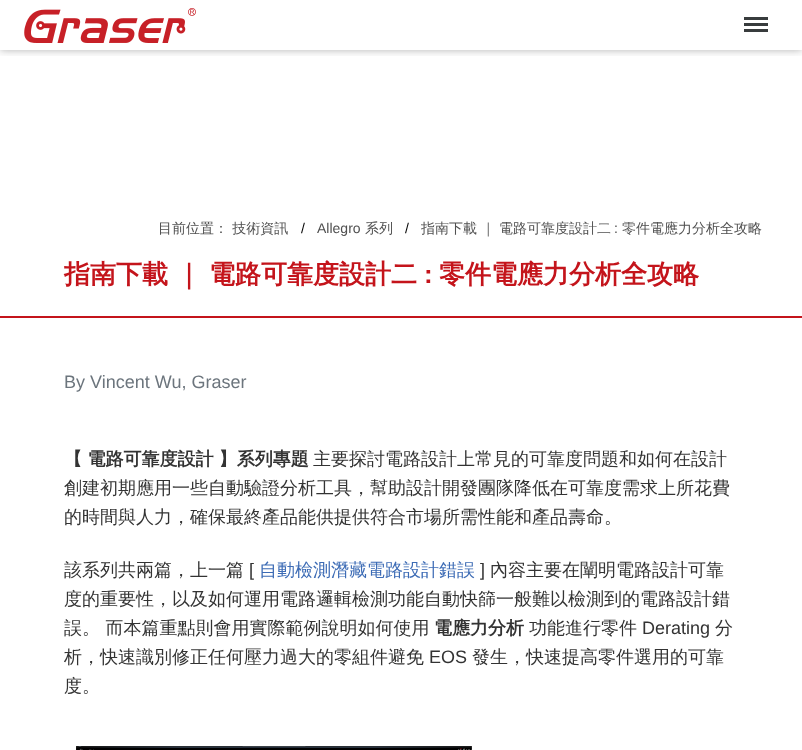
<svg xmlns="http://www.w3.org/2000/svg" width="802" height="750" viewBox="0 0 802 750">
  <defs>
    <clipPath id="clip1"><path d="M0 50h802v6H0z"/></clipPath>
  </defs>
  <rect width="100%" height="100%" fill="#fff"/>
  <g clip-path="url(#clip1)">
    <path d="M0 0h802v50H0z" fill="#0d0d0d52" filter="blur(4px)"/>
  </g>
  <image x="24" y="8" width="172" height="35" href="img/1.png"/>
  <path d="M744 23h24v3H744z" fill="#383c3d"/>
  <path d="M744 17h24v3H744z" fill="#383c3d"/>
  <path d="M744 29h24v3H744z" fill="#383c3d"/>
  <path d="M0 316h802v2H0z" fill="#c4141b"/>
  <image x="76" y="746" width="396" height="4" href="img/2.png"/>
  <text x="158" y="233" font-family="WenQuanYi Zen Hei" font-size="14" font-weight="500" fill="#505050">目前位置： 技術資訊</text>
  <text x="301" y="233" font-family="Liberation Sans" font-size="14" fill="#000">/</text>
  <text x="317" y="233" font-family="Liberation Sans" font-size="14" fill="#505050">Allegro</text>
  <text x="365" y="233" font-family="WenQuanYi Zen Hei" font-size="14" font-weight="500" fill="#505050">系列</text>
  <text x="405" y="233" font-family="Liberation Sans" font-size="14" fill="#000">/</text>
  <text x="421" y="233" font-family="WenQuanYi Zen Hei" font-size="14" font-weight="500" fill="#505050">指南下載 ｜ 電路可靠度設計二</text>
  <text x="614" y="233" font-family="Liberation Sans" font-size="14" fill="#505050">:</text>
  <text x="622" y="233" font-family="WenQuanYi Zen Hei" font-size="14" font-weight="500" fill="#505050">零件電應力分析全攻略</text>
  <text x="64" y="283" font-family="WenQuanYi Zen Hei" font-size="26" font-weight="bold" fill="#c4141b">指南下載 ｜ 電路可靠度設計二</text>
  <text x="424" y="283" font-family="Liberation Sans" font-size="26" font-weight="bold" fill="#c4141b">:</text>
  <text x="439" y="283" font-family="WenQuanYi Zen Hei" font-size="26" font-weight="bold" fill="#c4141b">零件電應力分析全攻略</text>
  <text x="64" y="388" font-family="Liberation Sans" font-size="18" fill="#6c757d">By Vincent Wu, Graser</text>
  <text x="64" y="465" font-family="WenQuanYi Zen Hei" font-size="18" font-weight="bold" fill="#333">【 電路可靠度設計 】系列專題</text>
  <g font-family="WenQuanYi Zen Hei" font-size="18" font-weight="500" fill="#333">
    <text x="313" y="465">主要探討電路設計上常見的可靠度問題和如何在設計</text>
    <text x="64" y="494">創建初期應用一些自動驗證分析工具，幫助設計開發團隊降低在可靠度需求上所花費</text>
    <text x="64" y="523">的時間與人力，確保最終產品能供提供符合市場所需性能和產品壽命。</text>
    <text x="64" y="576">該系列共兩篇，上一篇</text>
  </g>
  <text x="249" y="576" font-family="Liberation Sans" font-size="18" fill="#333">[</text>
  <text x="259" y="576" font-family="WenQuanYi Zen Hei" font-size="18" font-weight="500" fill="#3c6bb5">自動檢測潛藏電路設計錯誤</text>
  <text x="480" y="576" font-family="Liberation Sans" font-size="18" fill="#333">]</text>
  <g font-family="WenQuanYi Zen Hei" font-size="18" font-weight="500" fill="#333">
    <text x="490" y="576">內容主要在闡明電路設計可靠</text>
    <text x="64" y="605">度的重要性，以及如何運用電路邏輯檢測功能自動快篩一般難以檢測到的電路設計錯</text>
    <text x="64" y="634">誤。 而本篇重點則會用實際範例說明如何使用</text>
  </g>
  <text x="434" y="634" font-family="WenQuanYi Zen Hei" font-size="18" font-weight="bold" fill="#333">電應力分析</text>
  <text x="529" y="634" font-family="WenQuanYi Zen Hei" font-size="18" font-weight="500" fill="#333">功能進行零件</text>
  <text x="642" y="634" font-family="Liberation Sans" font-size="18" fill="#333">Derating</text>
  <g font-family="WenQuanYi Zen Hei" font-size="18" font-weight="500" fill="#333">
    <text x="715" y="634">分</text>
    <text x="64" y="663">析，快速識別修正任何壓力過大的零組件避免</text>
  </g>
  <text x="429" y="663" font-family="Liberation Sans" font-size="18" fill="#333">EOS</text>
  <g font-family="WenQuanYi Zen Hei" font-size="18" font-weight="500" fill="#333">
    <text x="472" y="663">發生，快速提高零件選用的可靠</text>
    <text x="64" y="692">度。</text>
  </g>
</svg>
